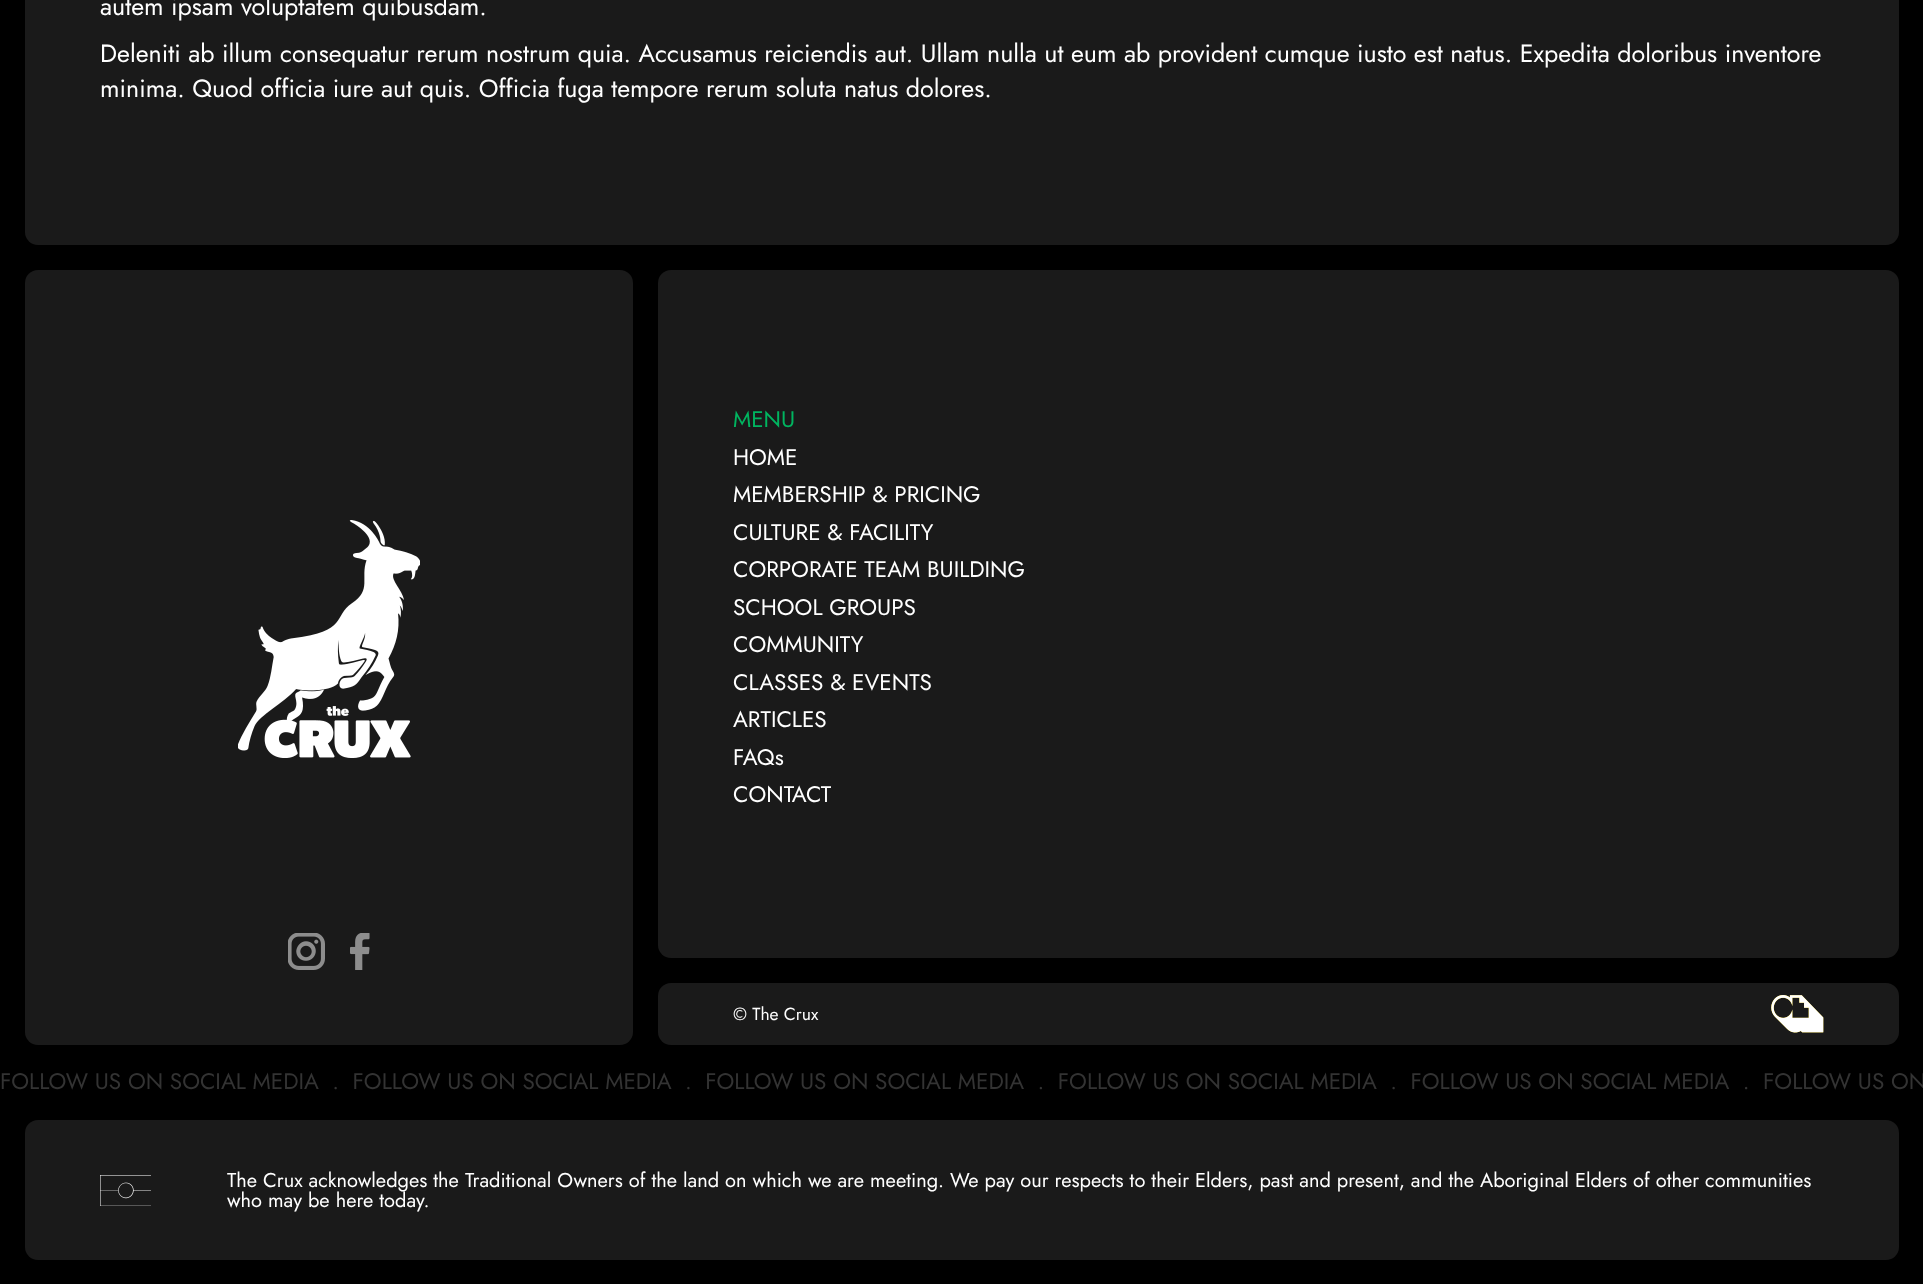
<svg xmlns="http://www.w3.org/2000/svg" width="1923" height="1284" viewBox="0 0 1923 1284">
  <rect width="100%" height="100%" fill="#000"/>
  <rect x="25" y="-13" width="1874" height="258" rx="13" fill="#1a1a1a"/>
  <rect x="25" y="270" width="608" height="775" rx="13" fill="#1a1a1a"/>
  <image x="238" y="520" width="182" height="238" href="img/1.png"/>
  <image x="288" y="933" width="37" height="37" href="img/2.png"/>
  <image x="350" y="933" width="20" height="37" href="img/3.png"/>
  <rect x="658" y="270" width="1241" height="688" rx="13" fill="#1a1a1a"/>
  <rect x="658" y="983" width="1241" height="62" rx="13" fill="#1a1a1a"/>
  <image x="1771" y="995" width="53" height="38" href="img/4.png"/>
  <image x="1771" y="995" width="53" height="38" href="img/5.png"/>
  <rect x="25" y="1120" width="1874" height="140" rx="13" fill="#1a1a1a"/>
  <image x="100" y="1175" width="51" height="31" href="img/6.png"/>
  <g font-family="Jost" font-size="25" fill="#fff">
    <text x="100" y="15">autem ipsam voluptatem quibusdam.</text>
    <text x="100" y="62">Deleniti ab illum consequatur rerum nostrum quia. Accusamus reiciendis aut. Ullam nulla ut eum ab provident cumque iusto est natus. Expedita doloribus inventore</text>
    <text x="100" y="97">minima. Quod officia iure aut quis. Officia fuga tempore rerum soluta natus dolores.</text>
  </g>
  <text x="733" y="427" font-family="Jost" font-size="22.5" fill="#00b560">MENU</text>
  <g font-family="Jost" font-size="22.5" fill="#fff">
    <text x="733" y="465">HOME</text>
    <text x="733" y="502">MEMBERSHIP &amp; PRICING</text>
    <text x="733" y="540">CULTURE &amp; FACILITY</text>
    <text x="733" y="577">CORPORATE TEAM BUILDING</text>
    <text x="733" y="615">SCHOOL GROUPS</text>
    <text x="733" y="652">COMMUNITY</text>
    <text x="733" y="690">CLASSES &amp; EVENTS</text>
    <text x="733" y="727">ARTICLES</text>
    <text x="733" y="765">FAQs</text>
    <text x="733" y="802">CONTACT</text>
  </g>
  <text x="733" y="1020" font-family="Jost" font-size="17.5" fill="#fff">© The Crux</text>
  <text x="0" y="1089" font-family="Jost" font-size="22.5" fill="#333" xml:space="preserve">FOLLOW US ON SOCIAL MEDIA  .  FOLLOW US ON SOCIAL MEDIA  .  FOLLOW US ON SOCIAL MEDIA  .  FOLLOW US ON SOCIAL MEDIA  .  FOLLOW US ON SOCIAL MEDIA  .  FOLLOW US ON</text>
  <g font-family="Jost" font-size="20" fill="#fff">
    <text x="227" y="1187">The Crux acknowledges the Traditional Owners of the land on which we are meeting. We pay our respects to their Elders, past and present, and the Aboriginal Elders of other communities</text>
    <text x="227" y="1207">who may be here today.</text>
  </g>
</svg>
